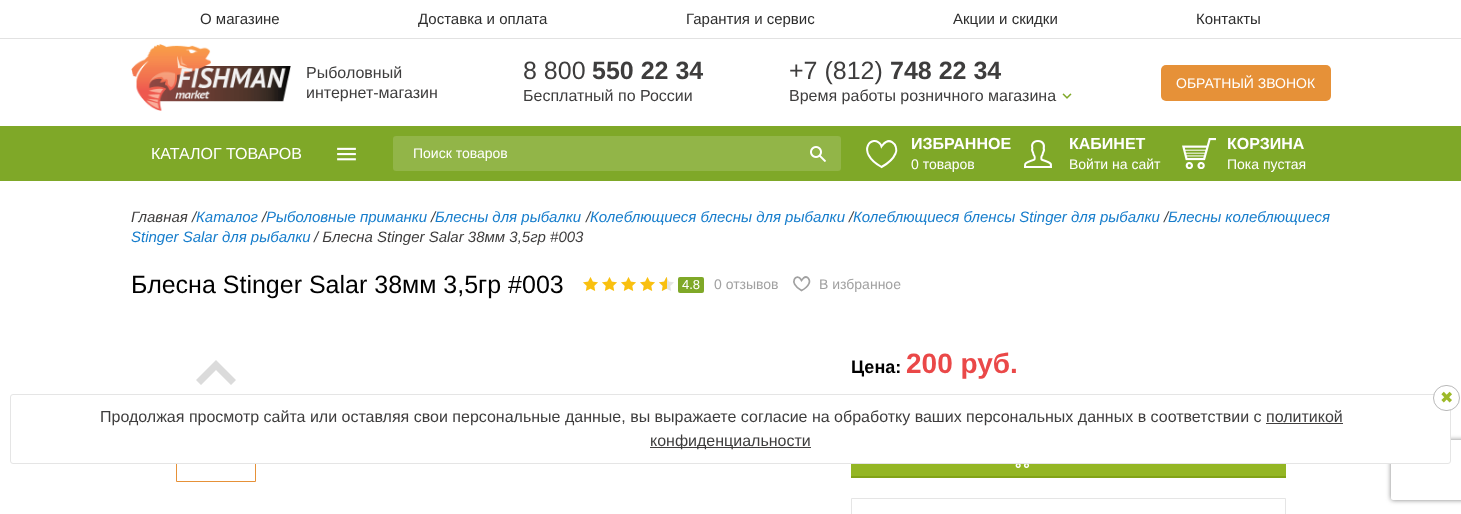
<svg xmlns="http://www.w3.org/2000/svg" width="1461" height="514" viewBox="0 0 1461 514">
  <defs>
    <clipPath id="clip1"><path d="M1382 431H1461V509H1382ZM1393 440H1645C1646 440 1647 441 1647 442V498C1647 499 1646 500 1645 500H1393C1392 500 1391 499 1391 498V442C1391 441 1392 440 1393 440Z" clip-rule="evenodd"/></clipPath>
  </defs>
  <rect width="100%" height="100%" fill="#fff"/>
  <path d="M0 38h1461v1H0z" fill="#e2e2e2"/>
  <image x="131" y="44" width="160" height="67" href="img/1.png"/>
  <image x="1062" y="93" width="10" height="6" href="img/2.png"/>
  <rect x="1161" y="65" width="170" height="36" rx="5" fill="#e69138"/>
  <path d="M0 126h1461v55H0z" fill="#7fa828"/>
  <rect x="393" y="136" width="448" height="35" rx="3" fill="#92b548"/>
  <image x="810" y="146" width="16" height="16" href="img/3.png"/>
  <path d="M881 145L881.5 146.5C883 144.5 884 143 886 142C890 139.5 895 143 896 147.5C896.5 149.5 896.5 151.5 895.5 153.5C893 159.5 887 164 881.5 167C854 151.5 873 132.5 881 145Z" fill="none" stroke="#fff" stroke-width="2"/>
  <image x="1024" y="140" width="28" height="28" href="img/4.png"/>
  <image x="1182" y="138" width="34" height="31" href="img/5.png"/>
  <image x="337" y="147" width="19" height="14" href="img/6.png"/>
  <image x="583" y="277" width="15" height="14" href="img/7.png"/>
  <image x="602" y="277" width="15" height="14" href="img/7.png"/>
  <image x="621" y="277" width="15" height="14" href="img/7.png"/>
  <image x="640" y="277" width="15" height="14" href="img/7.png"/>
  <image x="659" y="277" width="15" height="14" href="img/8.png"/>
  <rect x="678" y="277" width="26" height="16" rx="2" fill="#7fa828"/>
  <path d="M801 279.5L801.5 280.5L803.5 278C807.5 275 810.5 280 809 283.5C807.5 287 804.5 289 801.5 290.5C787 282.5 797 272.5 801 279.5Z" fill="none" stroke="#a1a1a1" stroke-width="1.7"/>
  <path d="M226 370L216 360L196 380L201 385L216 370L231 385L236 380Z" fill="#dbdbdb"/>
  <path d="M176.5 402.5h79v79H176.5z" fill="none" stroke="#e69138"/>
  <path d="M851 464h435v12H851z" fill="#94b624"/>
  <path d="M851 476h435v2H851z" fill="#82a317"/>
  <image x="1015" y="464" width="15" height="4" href="img/9.png"/>
  <path d="M851.5 498.5h434v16H851.5z" fill="none" stroke="#e5e5e5"/>
  <g clip-path="url(#clip1)">
    <rect x="1391" y="440" width="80" height="60" rx="2" fill="#808080" filter="blur(2.5px)"/>
  </g>
  <rect x="10.5" y="394.5" width="1440" height="69" rx="2.5" fill="#fff" stroke="#e5e5e5"/>
  <rect x="1433.5" y="385.5" width="26" height="25" rx="12.5" fill="#fff" stroke="#b9b9b9"/>
  <path d="M650 447h161v1H650z" fill="#413f3f"/>
  <g font-family="Liberation Sans" font-size="15" fill="#2d2d2d">
    <text x="200" y="24">О магазине</text>
    <text x="418" y="24">Доставка и оплата</text>
    <text x="686" y="24">Гарантия и сервис</text>
    <text x="953" y="24">Акции и скидки</text>
    <text x="1196" y="24">Контакты</text>
  </g>
  <g font-family="Liberation Sans" font-size="16" fill="#3e3d3d">
    <text x="306" y="78">Рыболовный</text>
    <text x="306" y="98">интернет-магазин</text>
  </g>
  <text x="523" y="79" font-family="Liberation Sans" font-size="25" fill="#3e3d3d">8 800</text>
  <text x="592" y="79" font-family="Liberation Sans" font-size="25" font-weight="bold" fill="#3e3d3d">550 22 34</text>
  <text x="523" y="101" font-family="Liberation Sans" font-size="16" fill="#3e3d3d">Бесплатный по России</text>
  <text x="789" y="79" font-family="Liberation Sans" font-size="25" fill="#3e3d3d">+7 (812)</text>
  <text x="890" y="79" font-family="Liberation Sans" font-size="25" font-weight="bold" fill="#3e3d3d">748 22 34</text>
  <text x="789" y="101" font-family="Liberation Sans" font-size="16" fill="#3e3d3d">Время работы розничного магазина</text>
  <g font-family="Liberation Sans" font-size="14" fill="#fff">
    <text x="1176" y="88">ОБРАТНЫЙ ЗВОНОК</text>
    <text x="413" y="158">Поиск товаров</text>
  </g>
  <text x="911" y="149" font-family="Liberation Sans" font-size="16" font-weight="bold" fill="#fff">ИЗБРАННОЕ</text>
  <text x="911" y="169" font-family="Liberation Sans" font-size="14" fill="#fff">0 товаров</text>
  <text x="1069" y="149" font-family="Liberation Sans" font-size="16" font-weight="bold" fill="#fff">КАБИНЕТ</text>
  <text x="1069" y="169" font-family="Liberation Sans" font-size="14" fill="#fff">Войти на сайт</text>
  <text x="1227" y="149" font-family="Liberation Sans" font-size="16" font-weight="bold" fill="#fff">КОРЗИНА</text>
  <text x="1227" y="169" font-family="Liberation Sans" font-size="14" fill="#fff">Пока пустая</text>
  <text x="151" y="159" font-family="Liberation Sans" font-size="16" fill="#fff">КАТАЛОГ ТОВАРОВ</text>
  <text x="131" y="222" font-family="Liberation Sans" font-size="15" font-style="italic" fill="#3e3d3d">Главная /</text>
  <text x="196" y="222" font-family="Liberation Sans" font-size="15" font-style="italic" fill="#167dcc">Каталог</text>
  <text x="262" y="222" font-family="Liberation Sans" font-size="15" font-style="italic" fill="#3e3d3d">/</text>
  <text x="266" y="222" font-family="Liberation Sans" font-size="15" font-style="italic" fill="#167dcc">Рыболовные приманки</text>
  <text x="431" y="222" font-family="Liberation Sans" font-size="15" font-style="italic" fill="#3e3d3d">/</text>
  <text x="435" y="222" font-family="Liberation Sans" font-size="15" font-style="italic" fill="#167dcc">Блесны для рыбалки</text>
  <text x="586" y="222" font-family="Liberation Sans" font-size="15" font-style="italic" fill="#3e3d3d">/</text>
  <text x="590" y="222" font-family="Liberation Sans" font-size="15" font-style="italic" fill="#167dcc">Колеблющиеся блесны для рыбалки</text>
  <text x="849" y="222" font-family="Liberation Sans" font-size="15" font-style="italic" fill="#3e3d3d">/</text>
  <text x="853" y="222" font-family="Liberation Sans" font-size="15" font-style="italic" fill="#167dcc">Колеблющиеся бленсы Stinger для рыбалки</text>
  <text x="1164" y="222" font-family="Liberation Sans" font-size="15" font-style="italic" fill="#3e3d3d">/</text>
  <g font-family="Liberation Sans" font-size="15" font-style="italic" fill="#167dcc">
    <text x="1168" y="222">Блесны колеблющиеся</text>
    <text x="131" y="242">Stinger Salar для рыбалки</text>
  </g>
  <text x="314" y="242" font-family="Liberation Sans" font-size="15" font-style="italic" fill="#3e3d3d">/ Блесна Stinger Salar 38мм 3,5гр #003</text>
  <text x="131" y="293" font-family="Liberation Sans" font-size="25" fill="#000">Блесна Stinger Salar 38мм 3,5гр #003</text>
  <text x="682" y="289" font-family="Liberation Sans" font-size="13" fill="#fff">4.8</text>
  <g font-family="Liberation Sans" font-size="14" fill="#a1a1a1">
    <text x="714" y="289">0 отзывов</text>
    <text x="819" y="289">В избранное</text>
  </g>
  <text x="851" y="373" font-family="Liberation Sans" font-size="18" font-weight="bold" fill="#000">Цена:</text>
  <text x="906" y="373" font-family="Liberation Sans" font-size="28" font-weight="bold" fill="#ea4848">200 руб.</text>
  <text x="1440" y="403" font-family="DejaVu Sans" font-size="16" fill="#9db929">✖</text>
  <g font-family="Liberation Sans" font-size="16" fill="#3e3d3d">
    <text x="100" y="422">Продолжая просмотр сайта или оставляя свои персональные данные, вы выражаете согласие на обработку ваших персональных данных в соответствии с политикой</text>
    <text x="650" y="446">конфиденциальности</text>
  </g>
  <path d="M1266 423h77v1H1266z" fill="#413f3f"/>
</svg>
